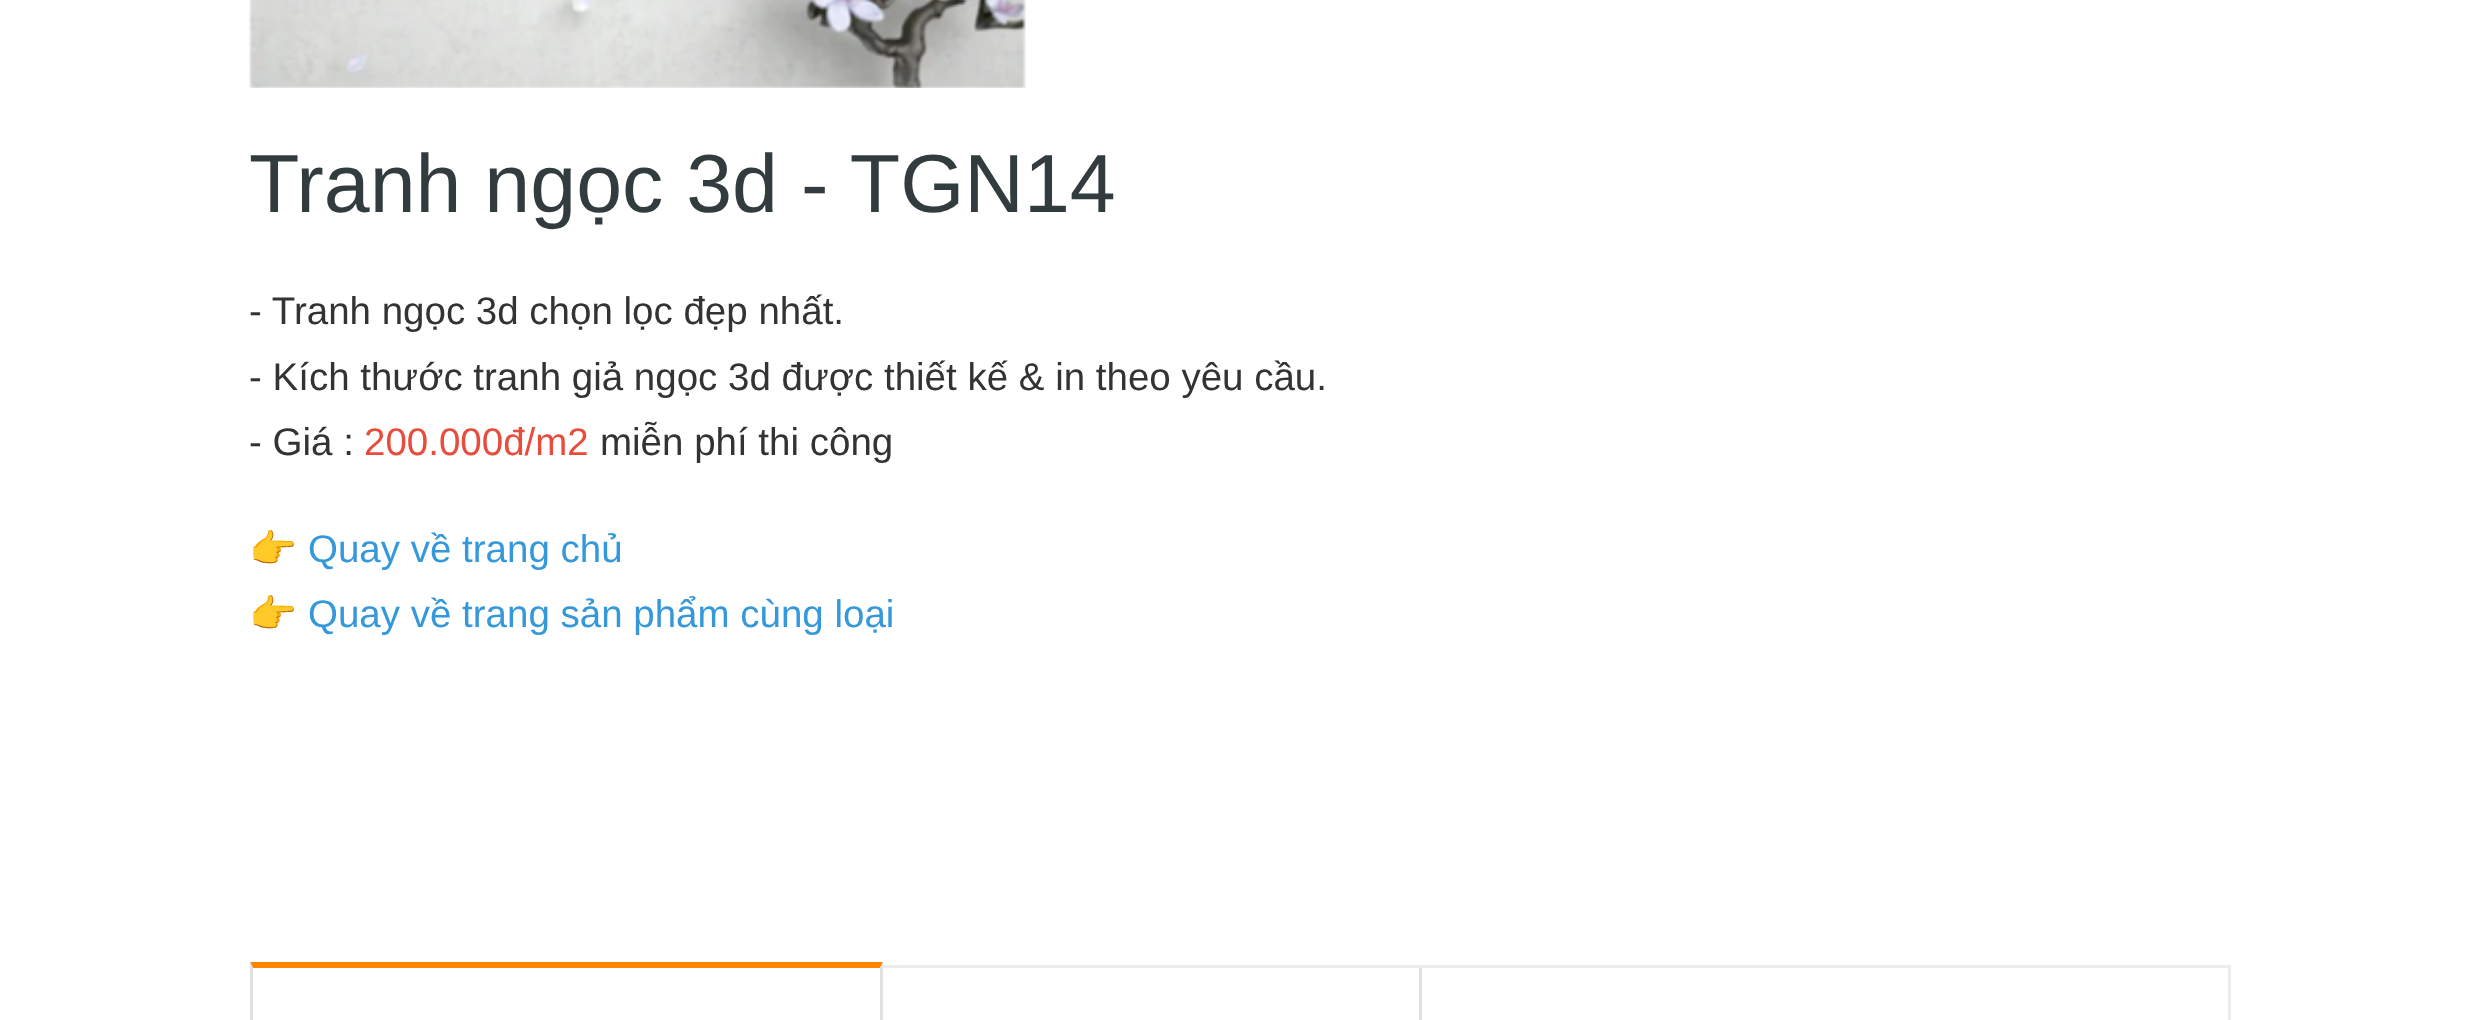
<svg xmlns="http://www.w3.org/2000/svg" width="2477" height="1020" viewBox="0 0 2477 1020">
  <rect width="100%" height="100%" fill="#fff"/>
  <image x="249" y="0" width="777" height="88" href="img/1.png"/>
  <path d="M250 965h1980v3H250z" fill="#ebebeb"/>
  <path d="M2228 965h3v55H2228z" fill="#ebebeb"/>
  <path d="M250 962H883L880 968H253Z" fill="#ff8500"/>
  <path d="M883 962V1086L880 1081V968Z" fill="#e1e1e1"/>
  <path d="M250 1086V962L253 968V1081Z" fill="#e1e1e1"/>
  <path d="M1419 968h3v52H1419z" fill="#e1e1e1"/>
  <text x="249" y="212" font-family="Liberation Sans" font-size="82.5" fill="#323c3f">Tranh ngọc 3d - TGN14</text>
  <g font-family="Liberation Sans" font-size="38.5" fill="#333">
    <text x="249" y="324">- Tranh ngọc 3d chọn lọc đẹp nhất.</text>
    <text x="249" y="390">- Kích thước tranh giả ngọc 3d được thiết kế &amp; in theo yêu cầu.</text>
    <text x="249" y="455">- Giá :</text>
  </g>
  <text x="364" y="455" font-family="Liberation Sans" font-size="38.5" fill="#e74c3c">200.000đ/m2</text>
  <text x="600" y="455" font-family="Liberation Sans" font-size="38.5" fill="#333">miễn phí thi công</text>
  <text x="249" y="562" font-family="Noto Color Emoji" font-size="38.5" fill="#333">👉</text>
  <text x="308" y="562" font-family="Liberation Sans" font-size="38.5" fill="#3498db">Quay về trang chủ</text>
  <text x="249" y="627" font-family="Noto Color Emoji" font-size="38.5" fill="#333">👉</text>
  <text x="308" y="627" font-family="Liberation Sans" font-size="38.5" fill="#3498db">Quay về trang sản phẩm cùng loại</text>
</svg>
